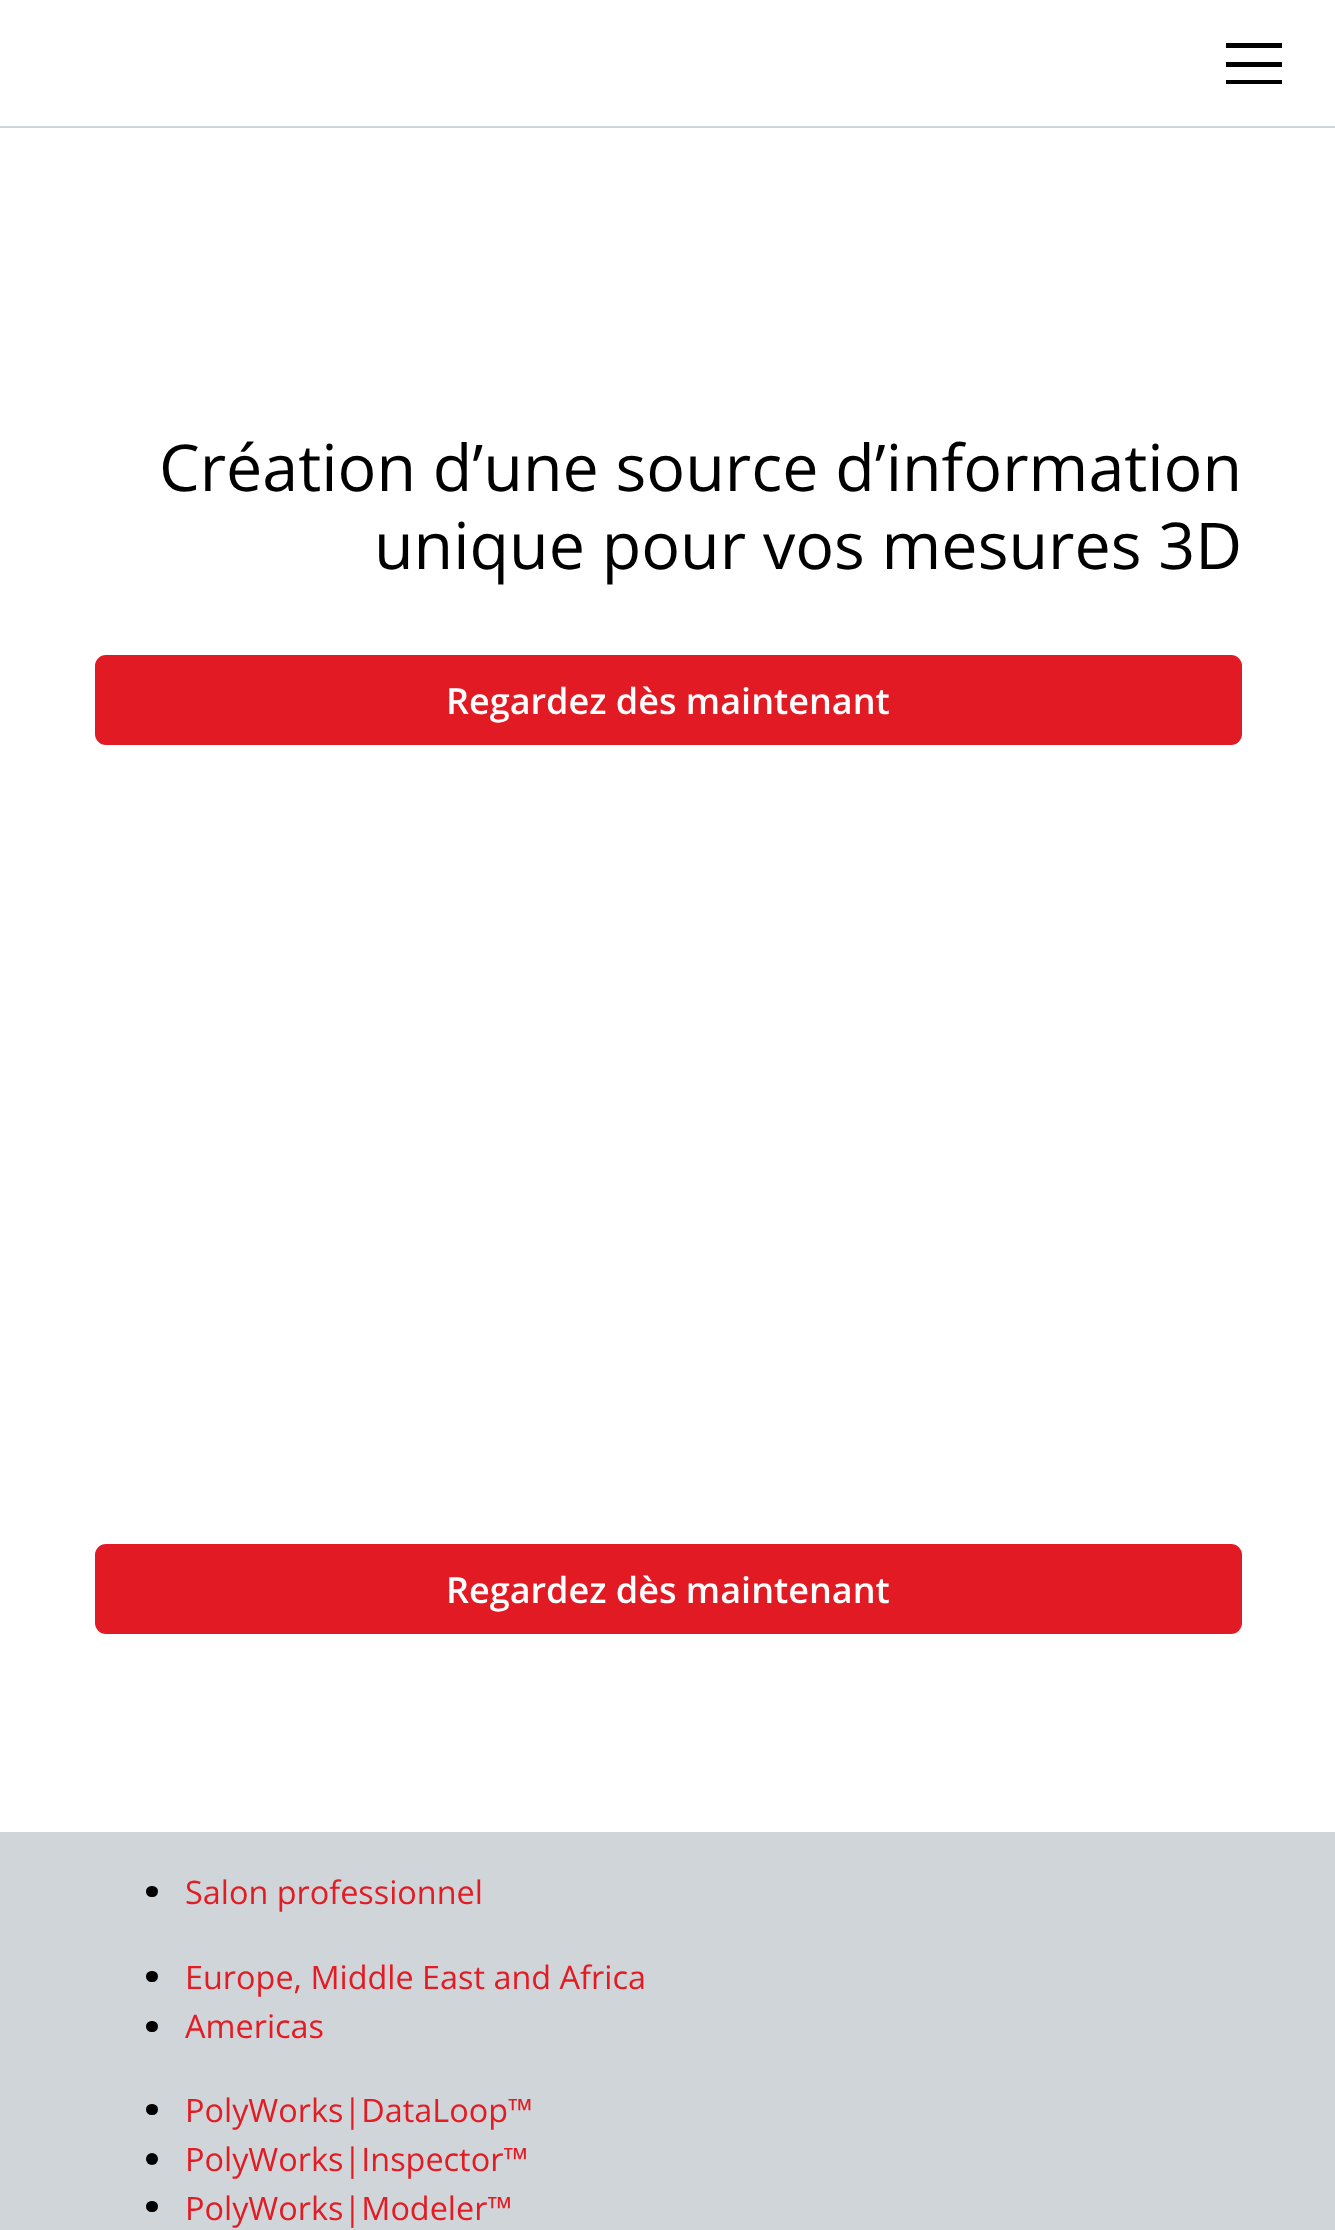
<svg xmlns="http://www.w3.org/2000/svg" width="1335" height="2230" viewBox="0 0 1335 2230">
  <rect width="100%" height="100%" fill="#fff"/>
  <path d="M0 126h1335v2H0z" fill="#d0d5d9"/>
  <path d="M1226 62H1282V67H1226ZM1226 80H1282V84H1226ZM1226 43H1282V48H1226Z" fill="#000"/>
  <rect x="95" y="655" width="1147" height="90" rx="11" fill="#e21a23"/>
  <rect x="95" y="1544" width="1147" height="90" rx="11" fill="#e21a23"/>
  <path d="M0 1832h1335v398H0z" fill="#d0d5d9"/>
  <rect x="146" y="1886" width="12" height="11" rx="5.5" fill="#000"/>
  <rect x="146" y="1971" width="12" height="11" rx="5.5" fill="#000"/>
  <rect x="146" y="2021" width="12" height="11" rx="5.5" fill="#000"/>
  <rect x="146" y="2104" width="12" height="11" rx="5.5" fill="#000"/>
  <circle cx="152" cy="2159" r="6" fill="#000"/>
  <rect x="146" y="2201" width="12" height="11" rx="5.5" fill="#000"/>
  <g font-family="Open Sans" font-size="64.6" fill="#000">
    <text x="159" y="491">Création d’une source d’information</text>
    <text x="374" y="569">unique pour vos mesures 3D</text>
  </g>
  <g font-family="Open Sans" font-size="36" font-weight="600" fill="#fff">
    <text x="446" y="714">Regardez dès maintenant</text>
    <text x="446" y="1603">Regardez dès maintenant</text>
  </g>
  <g font-family="Open Sans" font-size="32.4" fill="#e31b23">
    <text x="185" y="1904">Salon professionnel</text>
    <text x="185" y="1989">Europe, Middle East and Africa</text>
    <text x="185" y="2038">Americas</text>
    <text x="185" y="2122">PolyWorks|DataLoop™</text>
    <text x="185" y="2171">PolyWorks|Inspector™</text>
    <text x="185" y="2220">PolyWorks|Modeler™</text>
  </g>
</svg>
